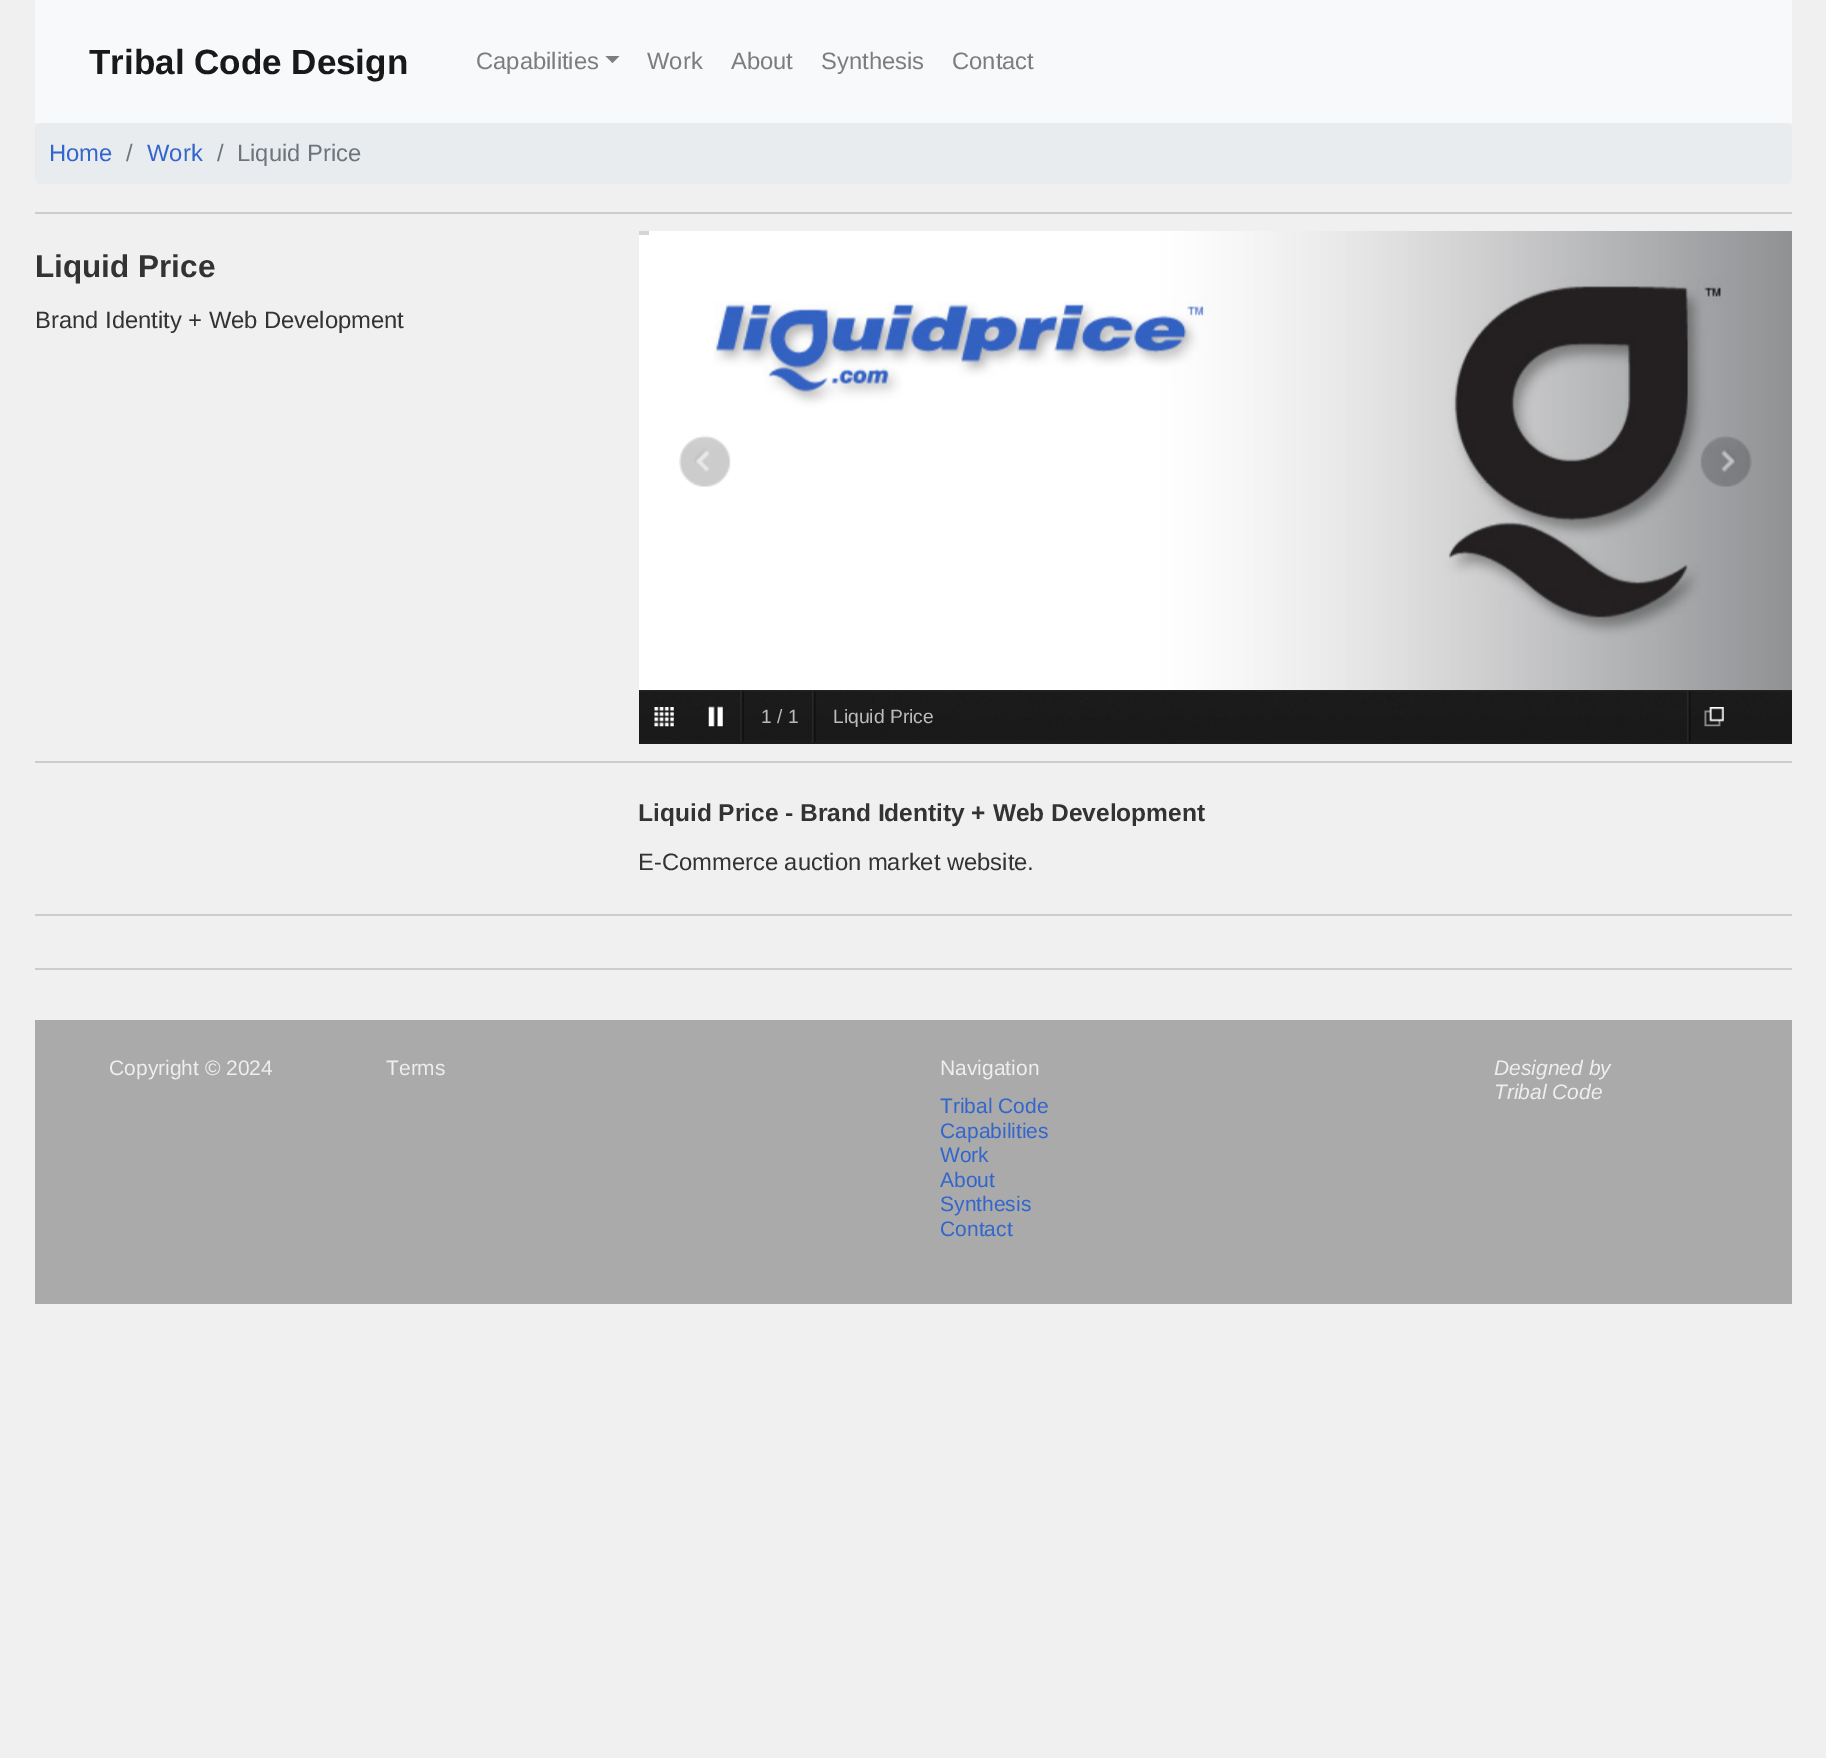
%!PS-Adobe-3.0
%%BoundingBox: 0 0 1826 1758
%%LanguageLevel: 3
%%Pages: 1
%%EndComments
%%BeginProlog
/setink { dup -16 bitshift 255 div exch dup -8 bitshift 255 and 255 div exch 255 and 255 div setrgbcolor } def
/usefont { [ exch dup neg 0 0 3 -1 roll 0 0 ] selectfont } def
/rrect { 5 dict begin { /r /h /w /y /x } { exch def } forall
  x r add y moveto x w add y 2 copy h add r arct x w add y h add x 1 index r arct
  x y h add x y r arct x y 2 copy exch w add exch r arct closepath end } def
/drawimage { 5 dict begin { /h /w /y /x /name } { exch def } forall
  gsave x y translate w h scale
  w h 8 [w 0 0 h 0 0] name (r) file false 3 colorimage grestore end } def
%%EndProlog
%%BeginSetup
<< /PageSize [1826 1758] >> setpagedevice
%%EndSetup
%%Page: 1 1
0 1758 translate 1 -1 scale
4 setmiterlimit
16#F0F0F0 setink
0 0 1826 1758 rectfill
16#F8F9FA setink
35 0 1757 123 rectfill
/LiberationSans-Bold 35 usefont
16#191919 setink
89 74 moveto (Tribal Code Design) show
/LiberationSans-Regular 23.75 usefont
16#7C7D7D setink
476 69 moveto (Capabilities) show
605.5 56 moveto 619.5 56 lineto 612.5 63 lineto closepath fill
[
    [(Work) 647 69]
    [(About) 731 69]
    [(Synthesis) 821 69]
    [(Contact) 952 69]
] { aload pop moveto show } forall
16#E9ECEF setink
35 123 1757 61 7 rrect fill
16#3366CC setink
49 161 moveto (Home) show
16#6C757D setink
126 161 moveto (/) show
16#3366CC setink
147 161 moveto (Work) show
16#6C757D setink
217 161 moveto (/) show
237 161 moveto (Liquid Price) show
16#CCCCCC setink
35 212 1757 2 rectfill
/LiberationSans-Bold 31.5 usefont
16#333333 setink
35 277 moveto (Liquid Price) show
/LiberationSans-Regular 23.75 usefont
35 328 moveto (Brand Identity + Web Development) show
(img1.raw) 639 231 1153 459 drawimage
16#D5D5D5 setink
639 231 10 4 rectfill
(img2.raw) 679 435 52 52 drawimage
(img3.raw) 1700 436 52 51 drawimage
16#222222 setink
639 690 1153 54 rectfill
(img4.raw) 639 691 1153 53 drawimage
(img5.raw) 654 707 20 20 drawimage
(img6.raw) 708 706 15 21 drawimage
(img7.raw) 740 691 4 51 drawimage
(img8.raw) 812 691 4 51 drawimage
/LiberationSans-Regular 19.25 usefont
16#BBBBBB setink
761 723 moveto (1 / 1) show
833 723 moveto (Liquid Price) show
(img9.raw) 1687 691 4 51 drawimage
(img10.raw) 1704 707 20 20 drawimage
16#CCCCCC setink
35 761 1757 2 rectfill
/LiberationSans-Bold 24.5 usefont
16#333333 setink
638 821 moveto (Liquid Price - Brand Identity + Web Development) show
/LiberationSans-Regular 23.75 usefont
638 870 moveto (E-Commerce auction market website.) show
[
    [35 914 1757 2 16#CCCCCC]
    [35 968 1757 2 16#CCCCCC]
    [35 1020 1757 284 16#AAAAAA]
] { aload pop setink rectfill } forall
/LiberationSans-Regular 21 usefont
16#EEEEEE setink
[
    [(Copyright © 2024) 109 1075]
    [(Terms) 386 1075]
    [(Navigation) 940 1075]
] { aload pop moveto show } forall
16#3366CC setink
[
    [(Tribal Code) 940 1113]
    [(Capabilities) 940 1138]
    [(Work) 940 1162]
    [(About) 940 1187]
    [(Synthesis) 940 1211]
    [(Contact) 940 1236]
] { aload pop moveto show } forall
/LiberationSans-Italic 21 usefont
16#EEEEEE setink
1494 1075 moveto (Designed by) show
1494 1099 moveto (Tribal Code) show
showpage
%%EOF
